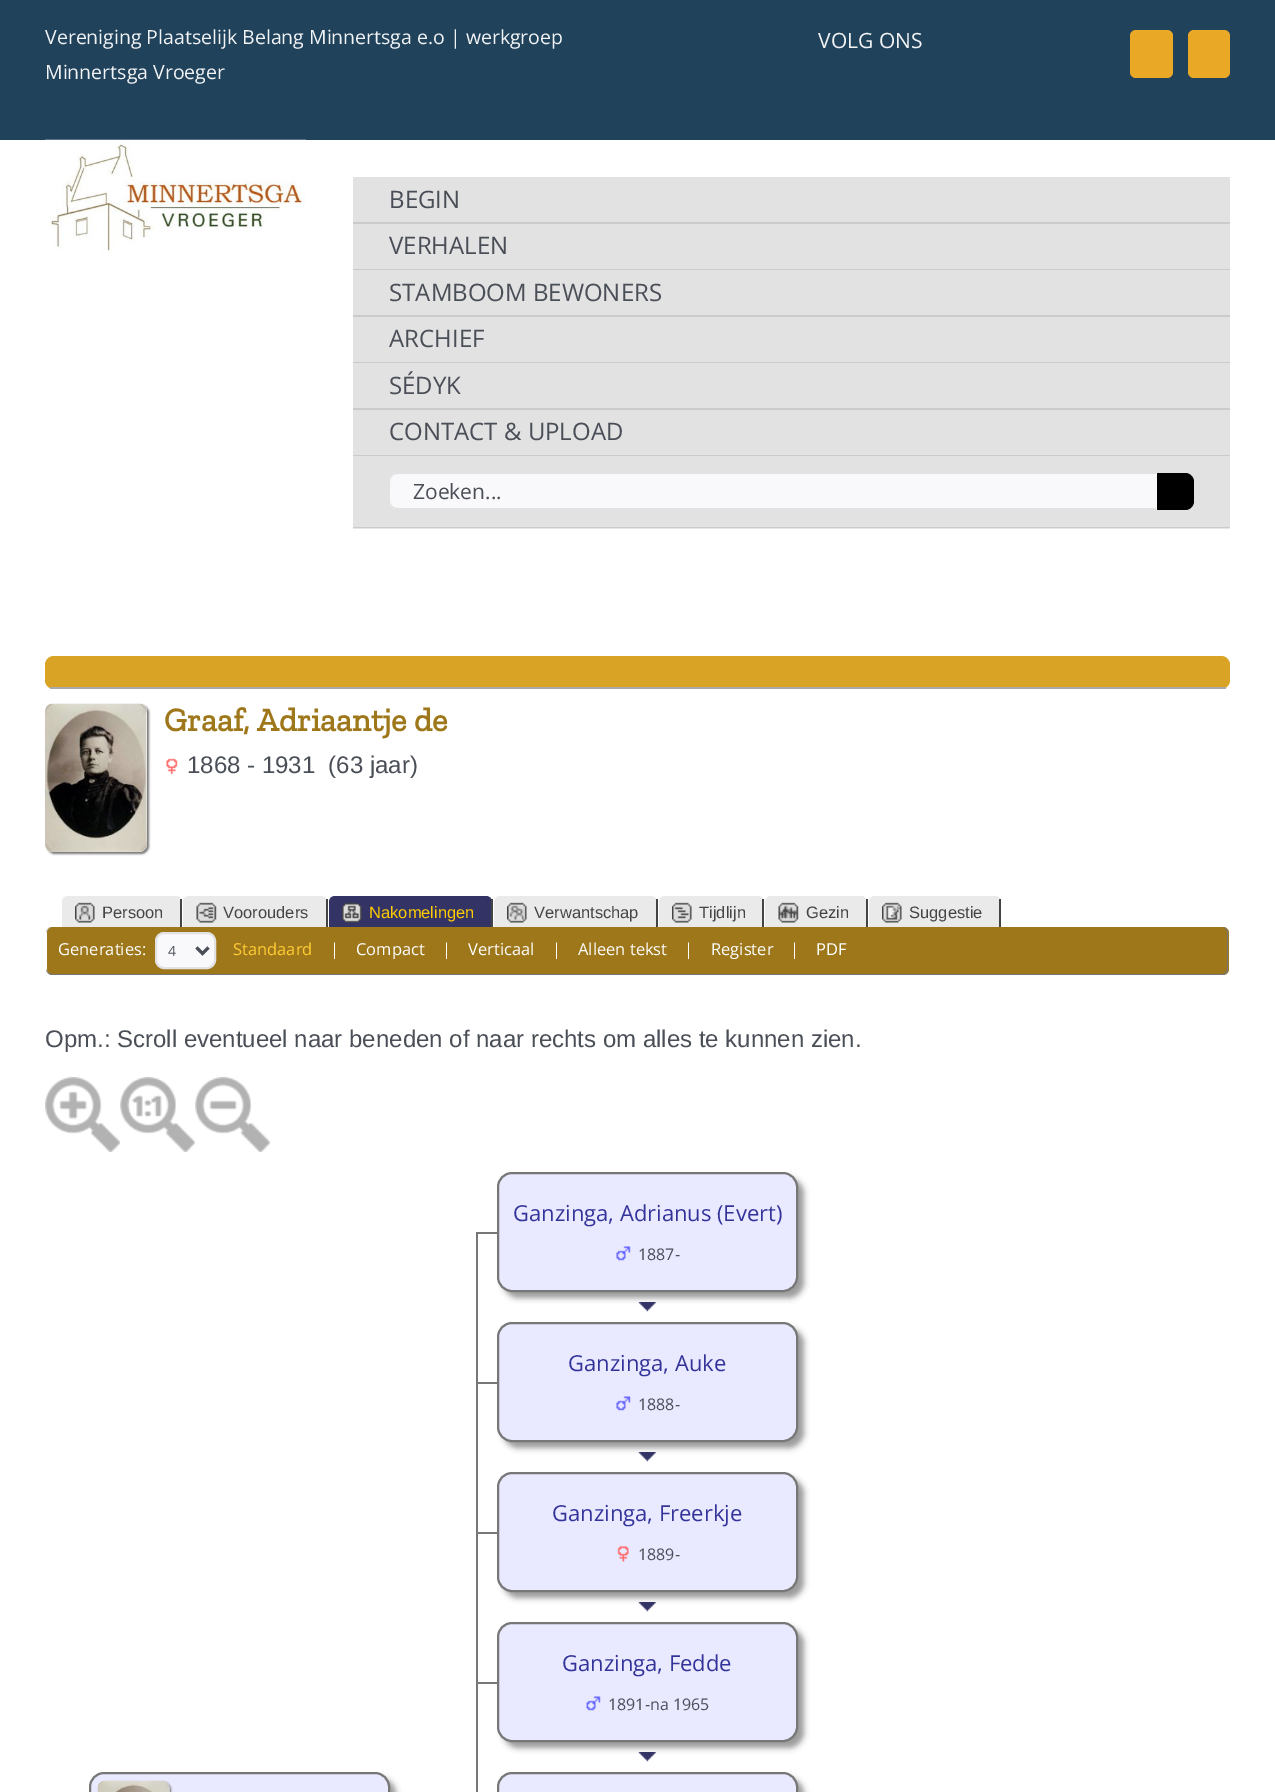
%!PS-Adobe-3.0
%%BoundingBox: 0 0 1275 1792
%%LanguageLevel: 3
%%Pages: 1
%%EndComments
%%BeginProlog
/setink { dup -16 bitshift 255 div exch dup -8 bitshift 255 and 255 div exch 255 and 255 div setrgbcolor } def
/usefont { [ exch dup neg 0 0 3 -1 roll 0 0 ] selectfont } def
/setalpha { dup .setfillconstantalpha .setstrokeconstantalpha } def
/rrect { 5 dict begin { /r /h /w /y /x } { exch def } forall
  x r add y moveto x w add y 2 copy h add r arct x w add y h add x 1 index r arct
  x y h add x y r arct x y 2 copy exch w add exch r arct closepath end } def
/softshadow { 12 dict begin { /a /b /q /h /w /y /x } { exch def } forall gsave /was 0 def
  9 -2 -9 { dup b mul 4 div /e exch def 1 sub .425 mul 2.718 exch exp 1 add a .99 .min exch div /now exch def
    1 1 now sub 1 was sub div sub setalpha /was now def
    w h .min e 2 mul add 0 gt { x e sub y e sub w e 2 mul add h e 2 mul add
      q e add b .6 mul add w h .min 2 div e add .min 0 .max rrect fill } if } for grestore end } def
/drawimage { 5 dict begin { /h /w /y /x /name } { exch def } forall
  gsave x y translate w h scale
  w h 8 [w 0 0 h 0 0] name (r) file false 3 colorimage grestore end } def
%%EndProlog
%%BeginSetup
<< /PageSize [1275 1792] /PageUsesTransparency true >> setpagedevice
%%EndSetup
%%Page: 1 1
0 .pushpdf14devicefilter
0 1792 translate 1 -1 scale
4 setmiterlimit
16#FFFFFF setink
0 0 1275 1792 rectfill
16#E6E6E6 setink
353 528 877 1 rectfill
16#20425B setink
0 0 1275 140 rectfill
/OpenSans-Regular 19.5 usefont
16#F2F3F5 setink
45 44 moveto (Vereniging Plaatselijk Belang Minnertsga e.o | werkgroep) show
45 79 moveto (Minnertsga Vroeger) show
/OpenSans-Regular 21 usefont
818 48 moveto (VOLG ONS) show
16#E9A825 setink
1130 30 43 48 6 rrect fill
1188 30 42 48 6 rrect fill
(img1.raw) 45 139 261 115 drawimage
16#E2E2E2 setink
353 177 877 278 rectfill
16#CBCBCB setink
353 222 877 2 rectfill
/OpenSans-Regular 24 usefont
16#4A4E57 setink
389 208 moveto (BEGIN) show
16#CBCBCB setink
353 269 877 1 rectfill
16#4A4E57 setink
389 254 moveto (VERHALEN) show
16#CBCBCB setink
353 315 877 2 rectfill
16#4A4E57 setink
389 301 moveto (STAMBOOM BEWONERS) show
16#CBCBCB setink
353 362 877 1 rectfill
16#4A4E57 setink
389 347 moveto (ARCHIEF) show
16#CBCBCB setink
353 408 877 2 rectfill
16#4A4E57 setink
389 394 moveto (SÉDYK) show
16#CBCBCB setink
353 455 877 1 rectfill
16#4A4E57 setink
389 440 moveto (CONTACT & UPLOAD) show
16#E2E2E2 setink
353 456 877 71 rectfill
16#CBCBCB setink
353 527 877 1 rectfill
16#F9F9FB setink
398 473 moveto 1157 473 lineto 1157 510 lineto 398 510 lineto 393 510 389 506 389 501 curveto 389 482 lineto 389 477 393 473 398 473 curveto closepath fill
16#E2E2E2 setink
398 474 moveto 1156 474 lineto 1156 473 lineto 398 473 lineto 393 473 389 477 389 482 curveto 389 501 lineto 389 506 393 510 398 510 curveto 1156 510 lineto 1156 508 lineto 398 508 lineto 393 508 390 505 390 501 curveto 390 482 lineto 390 477 393 474 398 474 curveto closepath fill
/OpenSans-Regular 21 usefont
16#4A4E57 setink
413 499 moveto (Zoeken...) show
16#000000 setink
1157 473 moveto 1185 473 lineto 1190 473 1194 477 1194 482 curveto 1194 501 lineto 1194 506 1190 510 1185 510 curveto 1157 510 lineto closepath fill
16#D9A325 setink
45 656 1185 33 9 rrect fill
16#AAAAAA setink
50 687 1176 2 rectfill
16#777777 setink
47 705 102 149 8 1 1 softshadow
(img2.raw) 45 703 102 149 drawimage
/ZillaSlab-Bold 33 usefont
16#9E771B setink
164 731 moveto (Graaf, Adriaantje de) show
(img3.raw) 166 758 12 16 drawimage
/LiberationSans-Regular 24 usefont
16#4A4E57 setink
187 773 moveto (1868 - 1931  \(63 jaar\)) show
16#EAEAEA setink
68 896 moveto 176 896 lineto 179.5 896 182 898.5 182 902 curveto 182 927 lineto 62 927 lineto 62 902 lineto 62 898.5 64.5 896 68 896 curveto closepath fill
16#444444 setink
180 899 2 28 rectfill
(img4.raw) 75 902 20 21 drawimage
/LiberationSans-Regular 16.5 usefont
102 918 moveto (Persoon) show
16#EAEAEA setink
189 896 moveto 321 896 lineto 324.5 896 327 898.5 327 902 curveto 327 927 lineto 183 927 lineto 183 902 lineto 183 898.5 185.5 896 189 896 curveto closepath fill
16#444444 setink
326 899 2 28 rectfill
(img5.raw) 196 902 21 21 drawimage
223 918 moveto (Voorouders) show
16#333366 setink
335 896 moveto 486 896 lineto 489.5 896 492 898.5 492 902 curveto 492 927 lineto 329 927 lineto 329 902 lineto 329 898.5 331.5 896 335 896 curveto closepath fill
16#444444 setink
491 899 2 28 rectfill
(img6.raw) 342 902 20 21 drawimage
16#FFCC00 setink
369 918 moveto (Nakomelingen) show
16#EAEAEA setink
500 896 moveto 651 896 lineto 654.5 896 657 898.5 657 902 curveto 657 927 lineto 494 927 lineto 494 902 lineto 494 898.5 496.5 896 500 896 curveto closepath fill
16#444444 setink
656 899 2 28 rectfill
(img7.raw) 507 902 20 21 drawimage
534 918 moveto (Verwantschap) show
16#EAEAEA setink
665 896 moveto 758 896 lineto 761.5 896 764 898.5 764 902 curveto 764 927 lineto 659 927 lineto 659 902 lineto 659 898.5 661.5 896 665 896 curveto closepath fill
16#444444 setink
762 899 2 28 rectfill
(img8.raw) 672 902 20 21 drawimage
699 918 moveto (Tijdlijn) show
16#EAEAEA setink
771 896 moveto 861 896 lineto 864.5 896 867 898.5 867 902 curveto 867 927 lineto 765 927 lineto 765 902 lineto 765 898.5 767.5 896 771 896 curveto closepath fill
16#444444 setink
866 899 2 28 rectfill
(img9.raw) 778 902 21 21 drawimage
806 918 moveto (Gezin) show
16#EAEAEA setink
875 896 moveto 995 896 lineto 998.5 896 1001 898.5 1001 902 curveto 1001 927 lineto 869 927 lineto 869 902 lineto 869 898.5 871.5 896 875 896 curveto closepath fill
16#444444 setink
999 899 2 28 rectfill
(img10.raw) 882 902 20 21 drawimage
909 918 moveto (Suggestie) show
16#9E771B setink
47 927 1182 48 6 rrect fill
16#777777 setink
52 927 moveto 1222 927 lineto 1226 927 1228 930 1228 933 curveto 1228 969 lineto 1228 972 1226 975 1222 975 curveto 52 975 lineto 49 975 46 972 46 969 curveto 46 933 lineto 46 930 49 927 52 927 curveto closepath 52 927 moveto 1222 927 lineto 1225 927 1227 930 1227 933 curveto 1227 969 lineto 1227 971 1225 974 1222 974 curveto 52 974 lineto 49 974 46 971 46 969 curveto 46 933 lineto 46 930 49 927 52 927 curveto closepath eofill
/OpenSans-Regular 16.5 usefont
16#FFFFFF setink
58 955 moveto (Generaties:) show
16#F9F9FB setink
156 933 59 35 8 rrect gsave fill grestore
16#E2E2E2 setink
2 setlinewidth
stroke
16#4A4E57 setink
3 setlinewidth
196.5 947.5 moveto 202.5 953.5 lineto 208.5 947.5 lineto stroke
/OpenSans-Regular 14 usefont
168 956 moveto (4) show
/OpenSans-Regular 16.5 usefont
16#FFCC33 setink
233 955 moveto (Standaard) show
16#FFFFFF setink
[
    [(|) 330 955]
    [(Compact) 356 955]
    [(|) 442 955]
    [(Verticaal) 468 955]
    [(|) 552 955]
    [(Alleen tekst) 578 955]
    [(|) 684 955]
    [(Register) 711 955]
    [(|) 790 955]
    [(PDF) 816 955]
] { aload pop moveto show } forall
/LiberationSans-Regular 24 usefont
16#4A4E57 setink
45 1047 moveto (Opm.: Scroll eventueel naar beneden of naar rechts om alles te kunnen zien.) show
(img11.raw) 45 1077 75 75 drawimage
(img12.raw) 120 1077 75 75 drawimage
(img13.raw) 195 1077 75 75 drawimage
16#777777 setink
476 1232 25 2 rectfill
16#999999 setink
503 1178 301 120 15 3 1 softshadow
16#E9E9FF setink
498 1173 299 118 14 rrect gsave fill grestore
16#777777 setink
2 setlinewidth
stroke
/OpenSans-Regular 22 usefont
16#333399 setink
513 1221 moveto (Ganzinga, Adrianus \(Evert\)) show
(img14.raw) 616 1246 15 15 drawimage
/OpenSans-Regular 16 usefont
16#4A4E57 setink
638 1260 moveto (1887-) show
[
    [476 1382 25 2 16#777777]
    [476 1532 25 2 16#777777]
    [476 1682 25 2 16#777777]
    [476 1232 2 560 16#777777]
] { aload pop setink rectfill } forall
(img15.raw) 638 1302 18 10 drawimage
16#999999 setink
503 1328 301 120 15 3 1 softshadow
16#E9E9FF setink
498 1323 299 118 14 rrect gsave fill grestore
16#777777 setink
stroke
/OpenSans-Regular 22 usefont
16#333399 setink
568 1371 moveto (Ganzinga, Auke) show
(img14.raw) 616 1396 15 15 drawimage
/OpenSans-Regular 16 usefont
16#4A4E57 setink
638 1410 moveto (1888-) show
(img15.raw) 638 1452 18 10 drawimage
16#999999 setink
503 1478 301 120 15 3 1 softshadow
16#E9E9FF setink
498 1473 299 118 14 rrect gsave fill grestore
16#777777 setink
stroke
/OpenSans-Regular 22 usefont
16#333399 setink
552 1521 moveto (Ganzinga, Freerkje) show
(img16.raw) 617 1546 12 16 drawimage
/OpenSans-Regular 16 usefont
16#4A4E57 setink
638 1560 moveto (1889-) show
(img15.raw) 638 1602 18 10 drawimage
16#999999 setink
503 1628 301 120 15 3 1 softshadow
16#E9E9FF setink
498 1623 299 118 14 rrect gsave fill grestore
16#777777 setink
stroke
/OpenSans-Regular 22 usefont
16#333399 setink
562 1671 moveto (Ganzinga, Fedde) show
(img17.raw) 586 1696 15 15 drawimage
/OpenSans-Regular 16 usefont
16#4A4E57 setink
608 1710 moveto (1891-na 1965) show
(img15.raw) 638 1752 18 10 drawimage
16#999999 setink
95 1778 301 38 15 3 1 softshadow
16#E9E9FF setink
90 1773 299 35 14 rrect gsave fill grestore
16#777777 setink
stroke
99 1782 72 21 8 1 1 softshadow
(img18.raw) 97 1780 73 12 drawimage
16#999999 setink
503 1778 301 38 15 3 1 softshadow
16#E9E9FF setink
498 1773 299 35 14 rrect gsave fill grestore
16#777777 setink
stroke
.poppdf14devicefilter showpage
%%EOF
